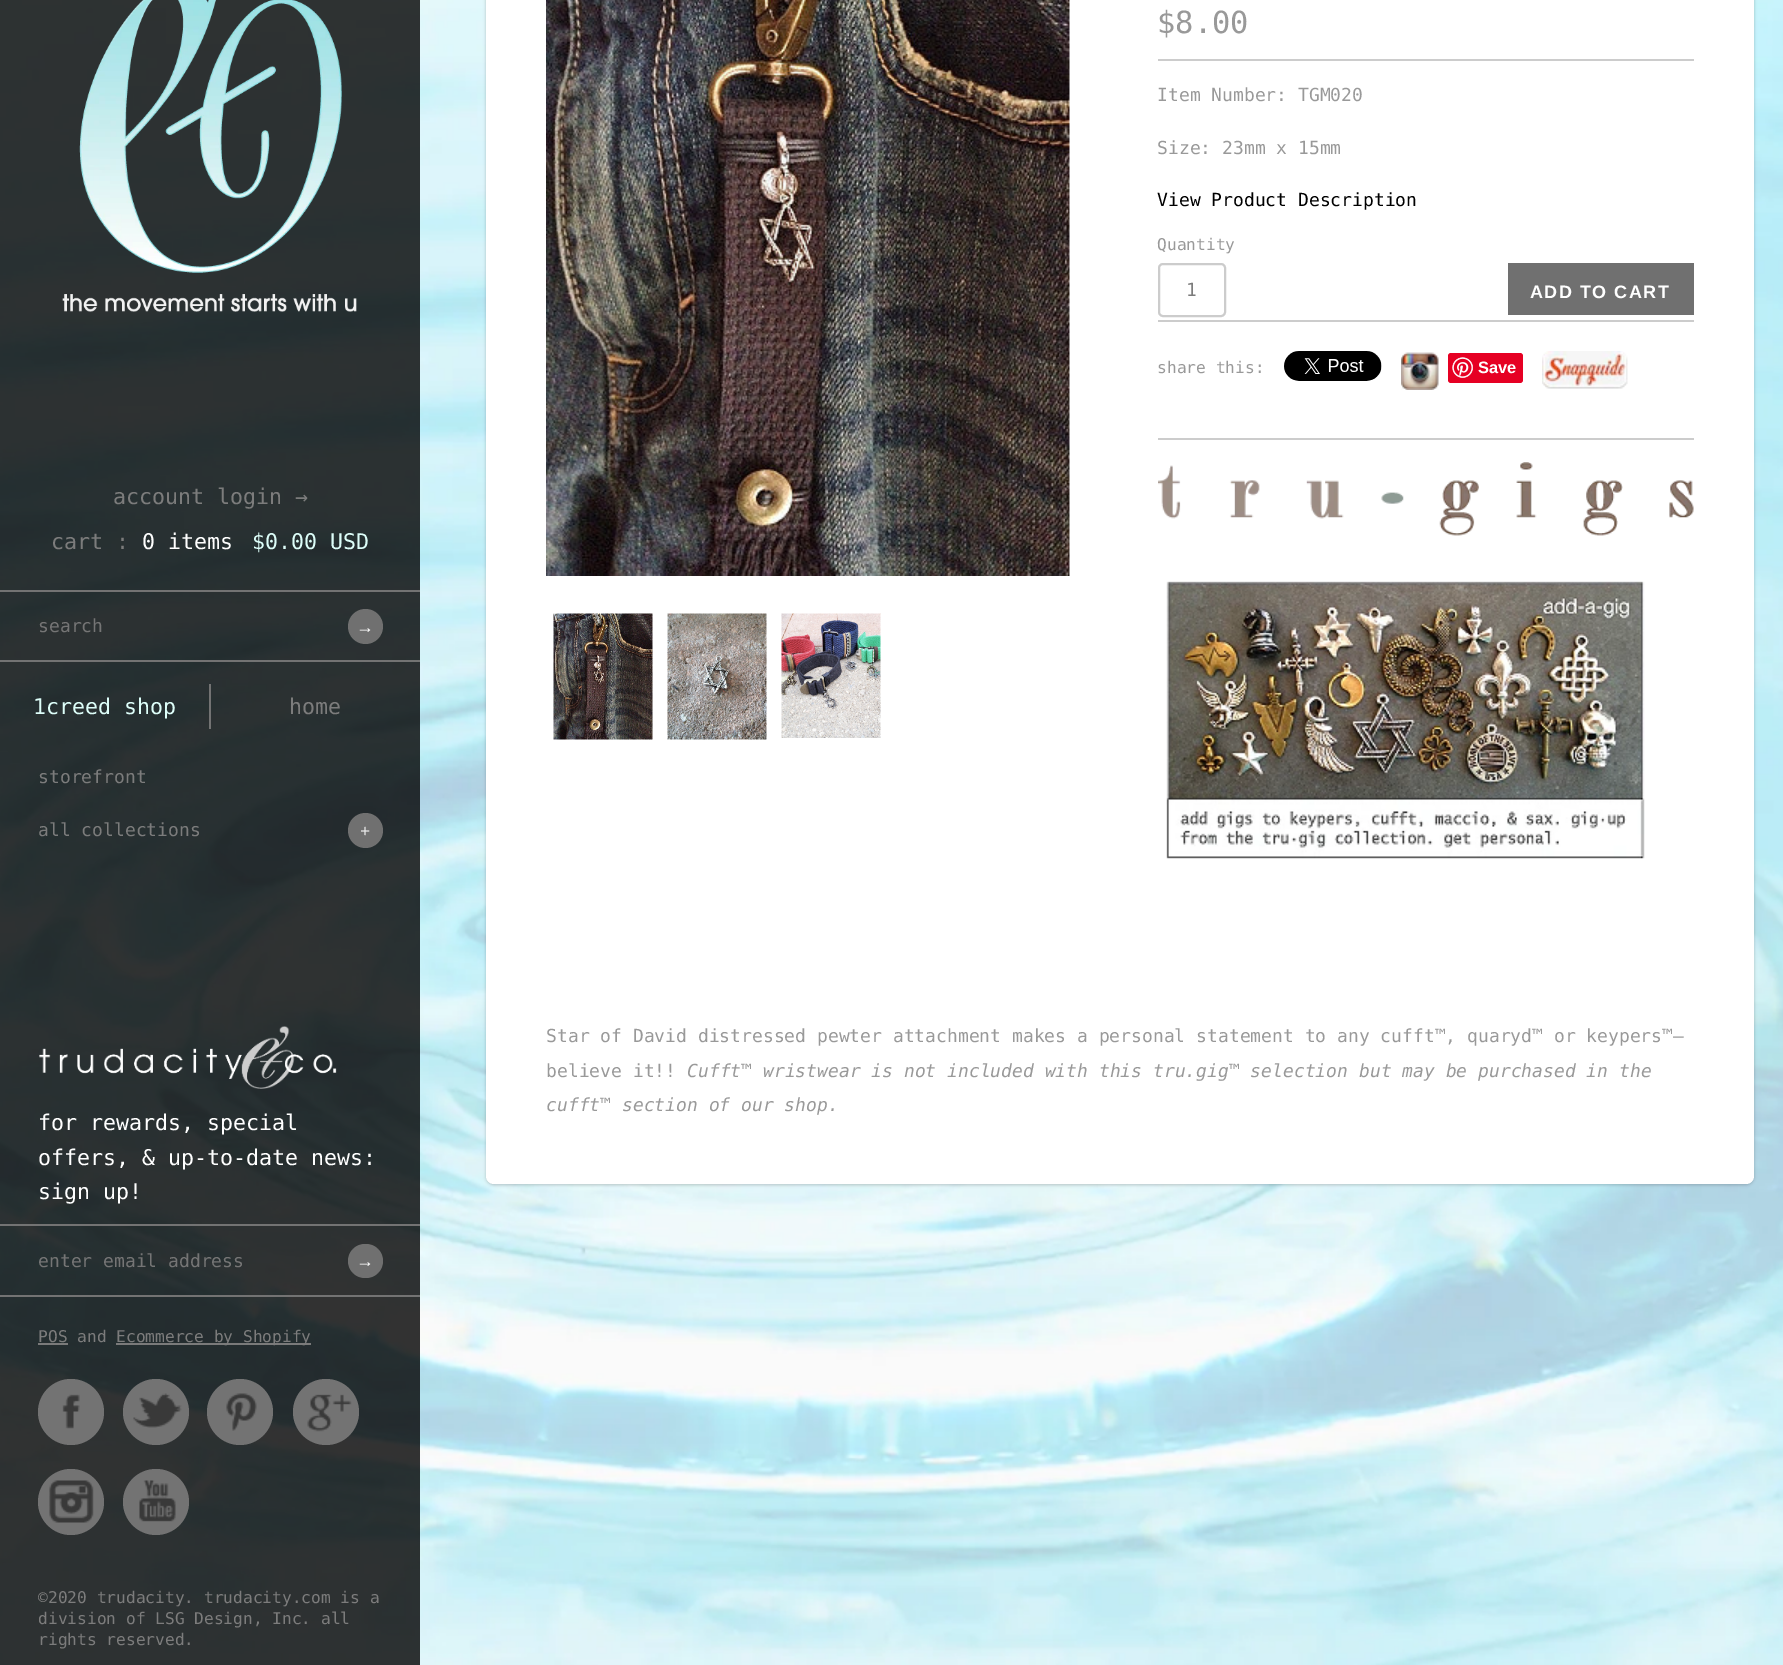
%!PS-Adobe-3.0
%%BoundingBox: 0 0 1783 1665
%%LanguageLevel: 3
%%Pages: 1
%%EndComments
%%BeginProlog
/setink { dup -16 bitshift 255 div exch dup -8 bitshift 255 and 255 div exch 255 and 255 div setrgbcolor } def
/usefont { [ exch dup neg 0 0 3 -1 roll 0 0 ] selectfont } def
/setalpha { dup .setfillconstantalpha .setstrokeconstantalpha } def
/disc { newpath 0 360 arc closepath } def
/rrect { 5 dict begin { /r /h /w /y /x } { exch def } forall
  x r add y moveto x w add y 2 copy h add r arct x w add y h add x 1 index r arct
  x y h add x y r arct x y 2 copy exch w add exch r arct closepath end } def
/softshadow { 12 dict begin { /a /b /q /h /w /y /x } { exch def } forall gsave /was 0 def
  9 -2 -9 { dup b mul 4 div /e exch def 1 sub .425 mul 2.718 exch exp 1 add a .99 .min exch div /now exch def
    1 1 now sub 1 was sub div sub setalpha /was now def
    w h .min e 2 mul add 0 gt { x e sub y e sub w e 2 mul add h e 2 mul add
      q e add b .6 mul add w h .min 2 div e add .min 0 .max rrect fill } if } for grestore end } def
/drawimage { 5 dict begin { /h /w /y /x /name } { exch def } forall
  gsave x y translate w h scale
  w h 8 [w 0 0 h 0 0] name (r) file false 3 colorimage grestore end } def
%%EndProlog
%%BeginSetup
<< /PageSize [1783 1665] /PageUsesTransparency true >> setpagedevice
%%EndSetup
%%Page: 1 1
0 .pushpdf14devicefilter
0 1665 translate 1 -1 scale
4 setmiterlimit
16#FFFFFF setink
0 0 1783 1665 rectfill
(img1.raw) 0 0 1783 1665 drawimage
0.8 setalpha
16#000000 setink
0 0 420 1665 rectfill
1 setalpha
(img2.raw) 62 0 295 312 drawimage
/DejaVuSansMono-Regular 21.6 usefont
16#7C7C7C setink
113 504 moveto (account login →) show
51 549 moveto (cart :) show
16#FFFFFF setink
142 549 moveto (0 items) show
16#DDFEF9 setink
252 549 moveto ($0.00 USD) show
16#737373 setink
0 590 420 2 rectfill
0 660 420 2 rectfill
/DejaVuSansMono-Regular 18 usefont
16#757575 setink
38 632 moveto (search) show
16#707070 setink
365.5 626.5 17.5 disc fill
/LiberationSerif-Regular 18 usefont
16#FFFFFF setink
356 633 moveto (→) show
16#737373 setink
209 684 2 45 rectfill
/DejaVuSansMono-Regular 21.6 usefont
16#DDFEF9 setink
33 714 moveto (1creed shop) show
/DejaVuSansMono-Regular 18 usefont
16#7C7C7C setink
38 783 moveto (storefront) show
38 836 moveto (all collections) show
16#707070 setink
365.5 830.5 17.5 disc fill
/LiberationSerif-Regular 18 usefont
16#FFFFFF setink
360 837 moveto (+) show
/DejaVuSansMono-Regular 21.6 usefont
16#7C7C7C setink
289 714 moveto (home) show
(img3.raw) 39 1026 298 63 drawimage
16#FFFFFF setink
[
    [(for rewards, special) 38 1130]
    [(offers, & up-to-date news:) 38 1165]
    [(sign up!) 38 1199]
] { aload pop moveto show } forall
16#737373 setink
0 1224 420 2 rectfill
0 1295 420 2 rectfill
/DejaVuSansMono-Regular 18 usefont
16#757575 setink
38 1267 moveto (enter email address) show
16#707070 setink
348 1244 35 34 17 rrect fill
/LiberationSerif-Regular 18 usefont
16#FFFFFF setink
356 1267 moveto (→) show
/DejaVuSansMono-Regular 16.2 usefont
16#7C7C7C setink
38 1342 moveto (POS and) show
16#7A7A7A setink
38 1343 30 2 rectfill
116 1343 195 2 rectfill
16#7C7C7C setink
116 1342 moveto (Ecommerce by Shopify) show
16#737373 setink
71 1412 33 disc fill
(img4.raw) 62 1394 18 35 drawimage
156 1412 33 disc fill
(img5.raw) 133 1393 49 35 drawimage
240 1412 33 disc fill
(img6.raw) 226 1393 31 38 drawimage
326 1412 33 disc fill
(img7.raw) 307 1394 45 38 drawimage
71 1502 33 disc fill
(img8.raw) 49 1480 45 43 drawimage
156 1502 33 disc fill
(img9.raw) 139 1480 37 42 drawimage
16#7C7C7C setink
[
    [(©2020 trudacity. trudacity.com is a) 38 1603]
    [(division of LSG Design, Inc. all) 38 1624]
    [(rights reserved.) 38 1645]
] { aload pop moveto show } forall
16#000000 setink
486 -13 1268 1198 8 1.5 0.2 softshadow
16#FFFFFF setink
486 -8 1268 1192 8 rrect fill
(img10.raw) 546 0 524 576 drawimage
(img11.raw) 553 613 100 127 drawimage
(img12.raw) 667 613 100 127 drawimage
(img13.raw) 781 613 100 125 drawimage
/DejaVuSansMono-Regular 30.5 usefont
16#999999 setink
1157 33 moveto ($8.00) show
16#CCCCCC setink
1158 59 536 2 rectfill
/DejaVuSansMono-Regular 18 usefont
16#999999 setink
1157 101 moveto (Item Number: TGM020) show
1157 154 moveto (Size: 23mm x 15mm) show
16#000000 setink
1157 206 moveto (View Product Description) show
/DejaVuSansMono-Regular 16.2 usefont
16#999999 setink
1157 250 moveto (Quantity) show
16#CCCCCC setink
2 setlinewidth
1159 264 66 52 4 rrect stroke
/DejaVuSansMono-Regular 18 usefont
16#7C7C7C setink
1186 296 moveto (1) show
16#707070 setink
1508 263 186 52 rectfill
/LiberationSans-Bold 18 usefont
16#FFFFFF setink
1530 298 moveto 1.5 0 (ADD TO CART) ashow
16#CCCCCC setink
1158 320 536 2 rectfill
/DejaVuSansMono-Regular 16.2 usefont
16#999999 setink
1157 373 moveto (share this:) show
(img14.raw) 1284 351 98 30 drawimage
(img15.raw) 1401 352 38 38 drawimage
16#E60023 setink
1448 353 75 30 3 rrect fill
(img16.raw) 1452 357 21 21 drawimage
/LiberationSans-Bold 16.5 usefont
16#FFFFFF setink
1478 373 moveto (Save) show
(img17.raw) 1542 351 86 38 drawimage
16#CCCCCC setink
1158 438 536 2 rectfill
(img18.raw) 1158 462 536 74 drawimage
(img19.raw) 1166 581 479 278 drawimage
/DejaVuSansMono-Regular 18 usefont
16#999999 setink
546 1042 moveto (Star of David distressed pewter attachment makes a personal statement to any cufft™, quaryd™ or keypers™—) show
546 1077 moveto (believe it!!) show
/DejaVuSansMono-Italic 18 usefont
687 1077 moveto (Cufft™ wristwear is not included with this tru.gig™ selection but may be purchased in the) show
546 1111 moveto (cufft™ section of our shop.) show
.poppdf14devicefilter showpage
%%EOF
